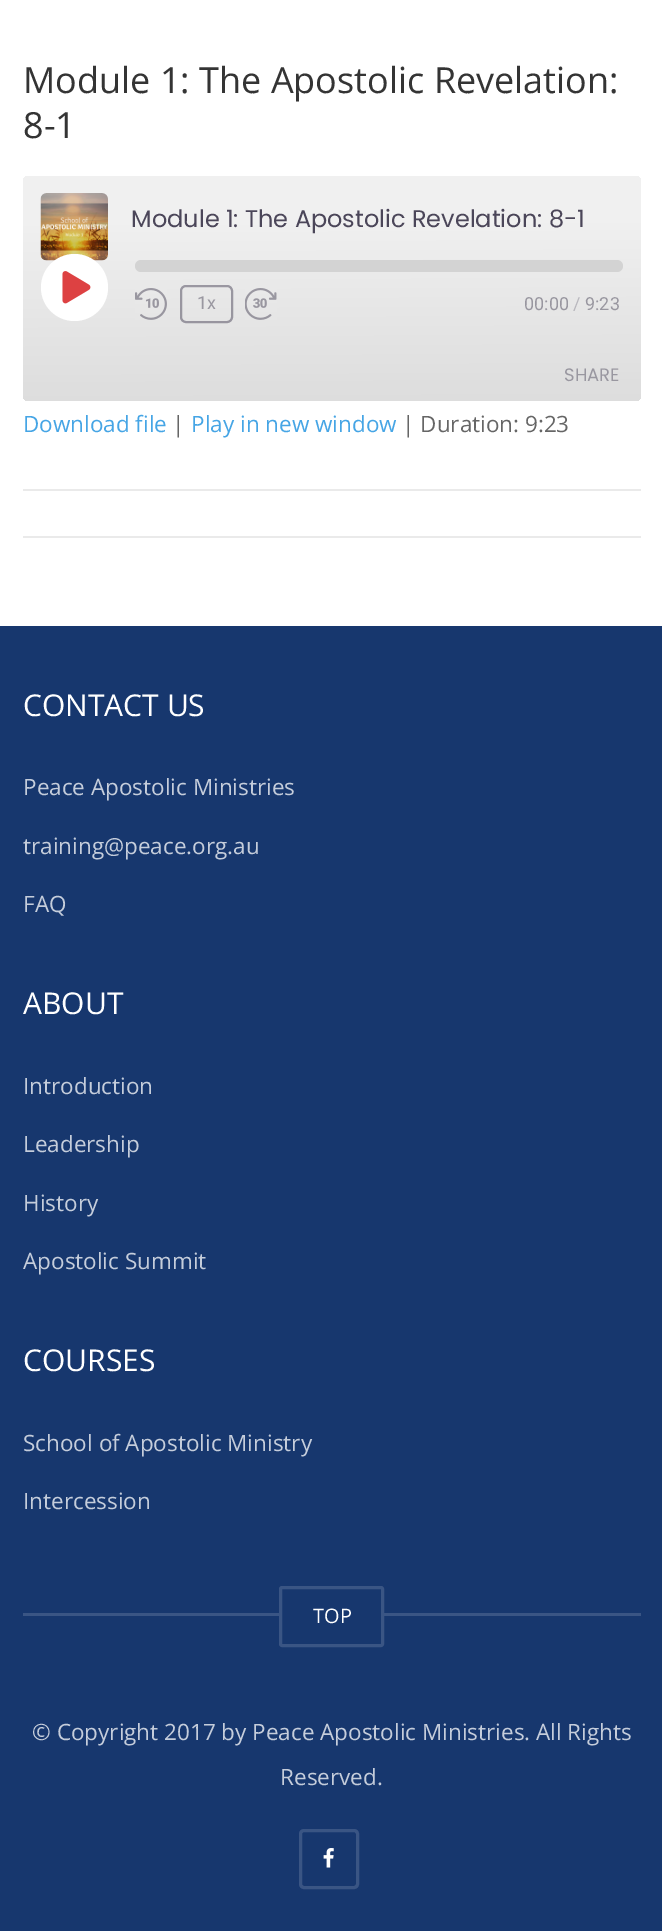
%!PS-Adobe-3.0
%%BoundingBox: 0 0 662 1931
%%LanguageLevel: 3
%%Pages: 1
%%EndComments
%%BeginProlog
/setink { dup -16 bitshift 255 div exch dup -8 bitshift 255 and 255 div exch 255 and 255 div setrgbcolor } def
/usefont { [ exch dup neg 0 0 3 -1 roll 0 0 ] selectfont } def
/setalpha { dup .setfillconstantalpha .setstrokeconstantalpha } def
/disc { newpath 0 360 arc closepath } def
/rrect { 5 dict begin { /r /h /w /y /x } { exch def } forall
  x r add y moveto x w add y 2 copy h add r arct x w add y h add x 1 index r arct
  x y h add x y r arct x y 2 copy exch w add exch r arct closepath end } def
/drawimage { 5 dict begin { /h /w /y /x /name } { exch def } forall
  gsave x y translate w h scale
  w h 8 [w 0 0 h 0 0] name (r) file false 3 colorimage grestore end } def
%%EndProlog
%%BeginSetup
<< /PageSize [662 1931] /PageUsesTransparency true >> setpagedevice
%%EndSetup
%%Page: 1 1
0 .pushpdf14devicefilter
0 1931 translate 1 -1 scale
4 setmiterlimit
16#FFFFFF setink
0 0 662 1931 rectfill
/OpenSans-Regular 36 usefont
16#343434 setink
23 93 moveto (Module 1: The Apostolic Revelation:) show
23 138 moveto (8-1) show
gsave 23 176 618 225 6 rrect clip newpath
<< /ShadingType 2 /ColorSpace /DeviceRGB /Coords [332 402 331 174] /Extend [true true] /Function << /FunctionType 3 /Domain [0 1] /Functions [<< /FunctionType 2 /Domain [0 1] /C0 [0.867 0.867 0.867] /C1 [0.867 0.867 0.867] /N 1 >> << /FunctionType 2 /Domain [0 1] /C0 [0.867 0.867 0.867] /C1 [0.941 0.941 0.941] /N 1 >> << /FunctionType 2 /Domain [0 1] /C0 [0.941 0.941 0.941] /C1 [0.941 0.941 0.941] /N 1 >>] /Bounds [0.01 0.78] /Encode [0 1 0 1 0 1] >> >> shfill grestore
(img1.raw) 40 193 68 68 drawimage
/Poppins-Regular 24 usefont
16#4B4659 setink
131 227 moveto (Module 1: The Apostolic Revelation: 8-1) show
16#FFFFFF setink
74.5 287.5 33.5 disc fill
(img2.raw) 62 271 29 33 drawimage
16#D3D3D3 setink
135 260 488 12 6 rrect fill
(img3.raw) 135 288 32 32 drawimage
0.5 setalpha
16#4B4659 setink
2 setlinewidth
181 286 51 36 5 rrect stroke
/Roboto-Regular 18 usefont
1 setalpha
16#9997A0 setink
197 309 moveto (1x) show
(img4.raw) 245 288 32 32 drawimage
524 310 moveto (00:00) show
16#B8B7BD setink
573 310 moveto (/) show
16#9997A0 setink
585 310 moveto (9:23) show
/Poppins-Regular 18 usefont
564 381 moveto (SHARE) show
/OpenSans-Regular 22.5 usefont
16#46A5E5 setink
23 432 moveto (Download file) show
16#666666 setink
172 432 moveto (|) show
16#46A5E5 setink
191 432 moveto (Play in new window) show
16#666666 setink
402 432 moveto (| Duration: 9:23) show
[
    [23 489 618 2 16#EAEAEA]
    [23 536 618 2 16#EAEAEA]
    [0 626 662 1305 16#17376E]
] { aload pop setink rectfill } forall
/OpenSans-Regular 30 usefont
16#FFFFFF setink
23 716 moveto (CONTACT US) show
/OpenSans-Regular 22.5 usefont
16#C5CDDB setink
[
    [(Peace Apostolic Ministries) 23 795]
    [(training@peace.org.au) 23 854]
    [(FAQ) 23 912]
] { aload pop moveto show } forall
/OpenSans-Regular 30 usefont
16#FFFFFF setink
23 1014 moveto (ABOUT) show
/OpenSans-Regular 22.5 usefont
16#C5CDDB setink
[
    [(Introduction) 23 1094]
    [(Leadership) 23 1152]
    [(History) 23 1211]
    [(Apostolic Summit) 23 1269]
] { aload pop moveto show } forall
/OpenSans-Regular 30 usefont
16#FFFFFF setink
23 1371 moveto (COURSES) show
/OpenSans-Regular 22.5 usefont
16#C5CDDB setink
23 1451 moveto (School of Apostolic Ministry) show
23 1509 moveto (Intercession) show
16#3A5584 setink
23 1613 618 3 rectfill
16#17376E setink
280.5 1587.5 102 58 1.5 rrect gsave fill grestore
16#3A5584 setink
3 setlinewidth
stroke
/OpenSans-Regular 20 usefont
16#FFFFFF setink
313 1623 moveto (TOP) show
/OpenSans-Regular 22.5 usefont
16#C5CDDB setink
32 1740 moveto (© Copyright 2017 by Peace Apostolic Ministries. All Rights) show
280 1785 moveto (Reserved.) show
16#3A5584 setink
300.5 1830.5 57 57 3.5 rrect stroke
(img5.raw) 323 1848 11 20 drawimage
.poppdf14devicefilter showpage
%%EOF
